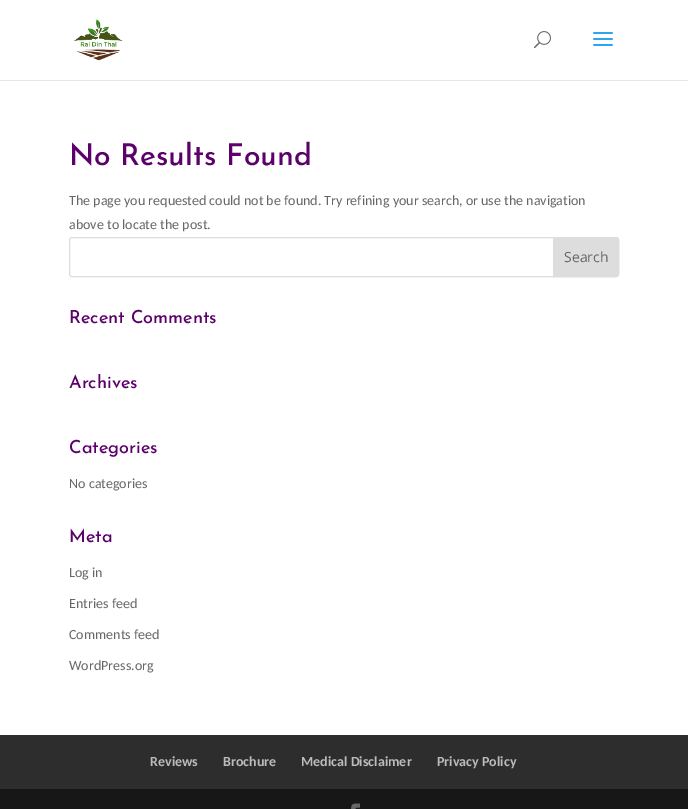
%!PS-Adobe-3.0
%%BoundingBox: 0 0 688 809
%%LanguageLevel: 3
%%Pages: 1
%%EndComments
%%BeginProlog
/setink { dup -16 bitshift 255 div exch dup -8 bitshift 255 and 255 div exch 255 and 255 div setrgbcolor } def
/usefont { [ exch dup neg 0 0 3 -1 roll 0 0 ] selectfont } def
/rrect { 5 dict begin { /r /h /w /y /x } { exch def } forall
  x r add y moveto x w add y 2 copy h add r arct x w add y h add x 1 index r arct
  x y h add x y r arct x y 2 copy exch w add exch r arct closepath end } def
/drawimage { 5 dict begin { /h /w /y /x /name } { exch def } forall
  gsave x y translate w h scale
  w h 8 [w 0 0 h 0 0] name (r) file false 3 colorimage grestore end } def
%%EndProlog
%%BeginSetup
<< /PageSize [688 809] >> setpagedevice
%%EndSetup
%%Page: 1 1
0 809 translate 1 -1 scale
4 setmiterlimit
16#FFFFFF setink
0 0 688 809 rectfill
16#E6E6E6 setink
0 80 688 1 rectfill
(img1.raw) 74 19 49 42 drawimage
(img2.raw) 534 31 17 18 drawimage
(img3.raw) 593 32 20 14 drawimage
/JosefinSans-Medium 30 usefont
16#5C006B setink
69 165 moveto (No Results Found) show
/Carlito-Regular 14 usefont
16#666666 setink
69 205 moveto (The page you requested could not be found. Try refining your search, or use the navigation) show
69 229 moveto (above to locate the post.) show
16#DDDDDD setink
69.5 237.5 549 39 2.5 rrect stroke
553.5 237.5 moveto 616 237.5 lineto 617.5 237.5 618.5 238.5 618.5 240 curveto 618.5 274 lineto 618.5 275.5 617.5 276.5 616 276.5 curveto 553.5 276.5 lineto closepath gsave fill grestore
stroke
/OpenSans-Regular 14 usefont
16#666666 setink
564 262 moveto (Search) show
/JosefinSans-Medium 18 usefont
16#5C006B setink
[
    [(Recent Comments) 69 323]
    [(Archives) 69 388]
    [(Categories) 69 453]
] { aload pop moveto show } forall
/Carlito-Regular 14 usefont
16#666666 setink
69 488 moveto (No categories) show
/JosefinSans-Medium 18 usefont
16#5C006B setink
69 542 moveto (Meta) show
/Carlito-Regular 14 usefont
16#666666 setink
[
    [(Log in) 69 577]
    [(Entries feed) 69 608]
    [(Comments feed) 69 639]
    [(WordPress.org) 69 670]
] { aload pop moveto show } forall
16#2D2D2D setink
0 735 688 54 rectfill
/Carlito-Bold 14 usefont
16#BBBBBB setink
[
    [(Reviews) 150 766]
    [(Brochure) 223 766]
    [(Medical Disclaimer) 301 766]
    [(Privacy Policy) 437 766]
] { aload pop moveto show } forall
16#171717 setink
0 789 688 20 rectfill
(img4.raw) 351 803 9 6 drawimage
showpage
%%EOF
